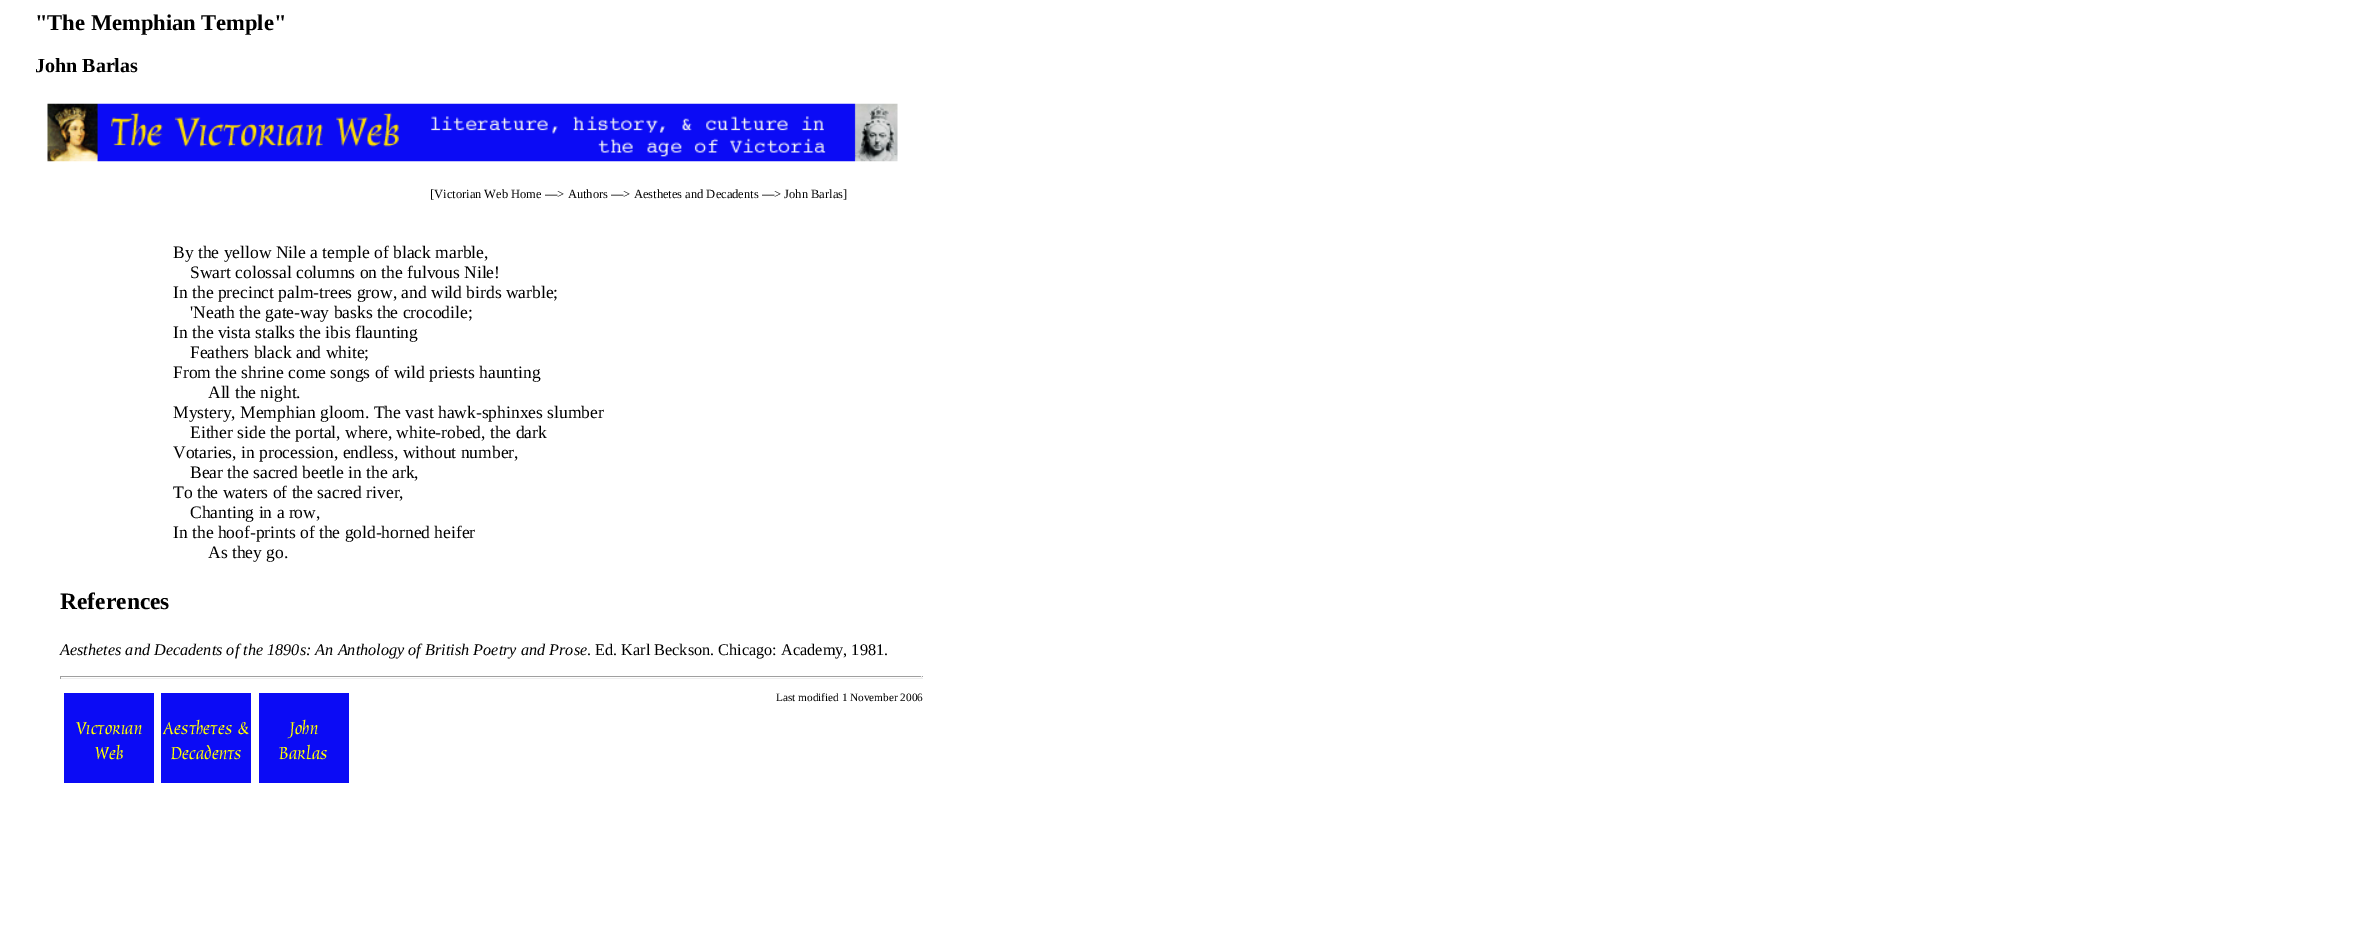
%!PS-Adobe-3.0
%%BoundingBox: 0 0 2359 945
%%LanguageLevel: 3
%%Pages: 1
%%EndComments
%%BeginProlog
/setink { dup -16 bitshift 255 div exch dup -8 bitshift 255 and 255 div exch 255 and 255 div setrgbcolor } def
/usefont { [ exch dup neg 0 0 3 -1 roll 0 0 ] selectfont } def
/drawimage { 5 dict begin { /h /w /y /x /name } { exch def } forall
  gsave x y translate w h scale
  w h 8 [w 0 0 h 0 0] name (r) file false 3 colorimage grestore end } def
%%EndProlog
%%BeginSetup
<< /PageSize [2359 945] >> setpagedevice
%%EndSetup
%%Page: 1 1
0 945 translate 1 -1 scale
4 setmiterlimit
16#FFFFFF setink
0 0 2359 945 rectfill
/LiberationSerif-Bold 22.5 usefont
16#000000 setink
35 30 moveto ("The Memphian Temple") show
/LiberationSerif-Bold 20 usefont
35 72 moveto (John Barlas) show
(img1.raw) 47 103 851 59 drawimage
/LiberationSerif-Regular 12.5 usefont
430 198 moveto ([Victorian Web Home —> Authors —> Aesthetes and Decadents —> John Barlas]) show
/LiberationSerif-Regular 17.5 usefont
[
    [(By the yellow Nile a temple of black marble,) 173 258]
    [(Swart colossal columns on the fulvous Nile!) 190 278]
    [(In the precinct palm-trees grow, and wild birds warble;) 173 298]
    [('Neath the gate-way basks the crocodile;) 190 318]
    [(In the vista stalks the ibis flaunting) 173 338]
    [(Feathers black and white;) 190 358]
    [(From the shrine come songs of wild priests haunting) 173 378]
    [(All the night.) 208 398]
    [(Mystery, Memphian gloom. The vast hawk-sphinxes slumber) 173 418]
    [(Either side the portal, where, white-robed, the dark) 190 438]
    [(Votaries, in procession, endless, without number,) 173 458]
    [(Bear the sacred beetle in the ark,) 190 478]
    [(To the waters of the sacred river,) 173 498]
    [(Chanting in a row,) 190 518]
    [(In the hoof-prints of the gold-horned heifer) 173 538]
    [(As they go.) 208 558]
] { aload pop moveto show } forall
/LiberationSerif-Bold 23.5 usefont
60 609 moveto (References) show
/LiberationSerif-Italic 16.25 usefont
60 655 moveto (Aesthetes and Decadents of the 1890s: An Anthology of British Poetry and Prose) show
/LiberationSerif-Regular 16.25 usefont
587 655 moveto (. Ed. Karl Beckson. Chicago: Academy, 1981.) show
[
    [60 676 863 1 16#9F9F9F]
    [921 676 1 3 16#EEEEEE]
    [60 678 863 1 16#EEEEEE]
    [60 676 1 3 16#9F9F9F]
] { aload pop setink rectfill } forall
/LiberationSerif-Regular 11.25 usefont
16#000000 setink
776 701 moveto (Last modified 1 November 2006) show
16#0B0BF5 setink
64 693 90 90 rectfill
/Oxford-Regular 20 usefont
16#FFFF00 setink
76 734 moveto (Victorian) show
95 759 moveto (Web) show
16#0B0BF5 setink
161 693 90 90 rectfill
16#FFFF00 setink
163 734 moveto (Aesthetes &) show
171 759 moveto (Decadents) show
16#0B0BF5 setink
259 693 90 90 rectfill
16#FFFF00 setink
290 734 moveto (John) show
279 759 moveto (Barlas) show
showpage
%%EOF
